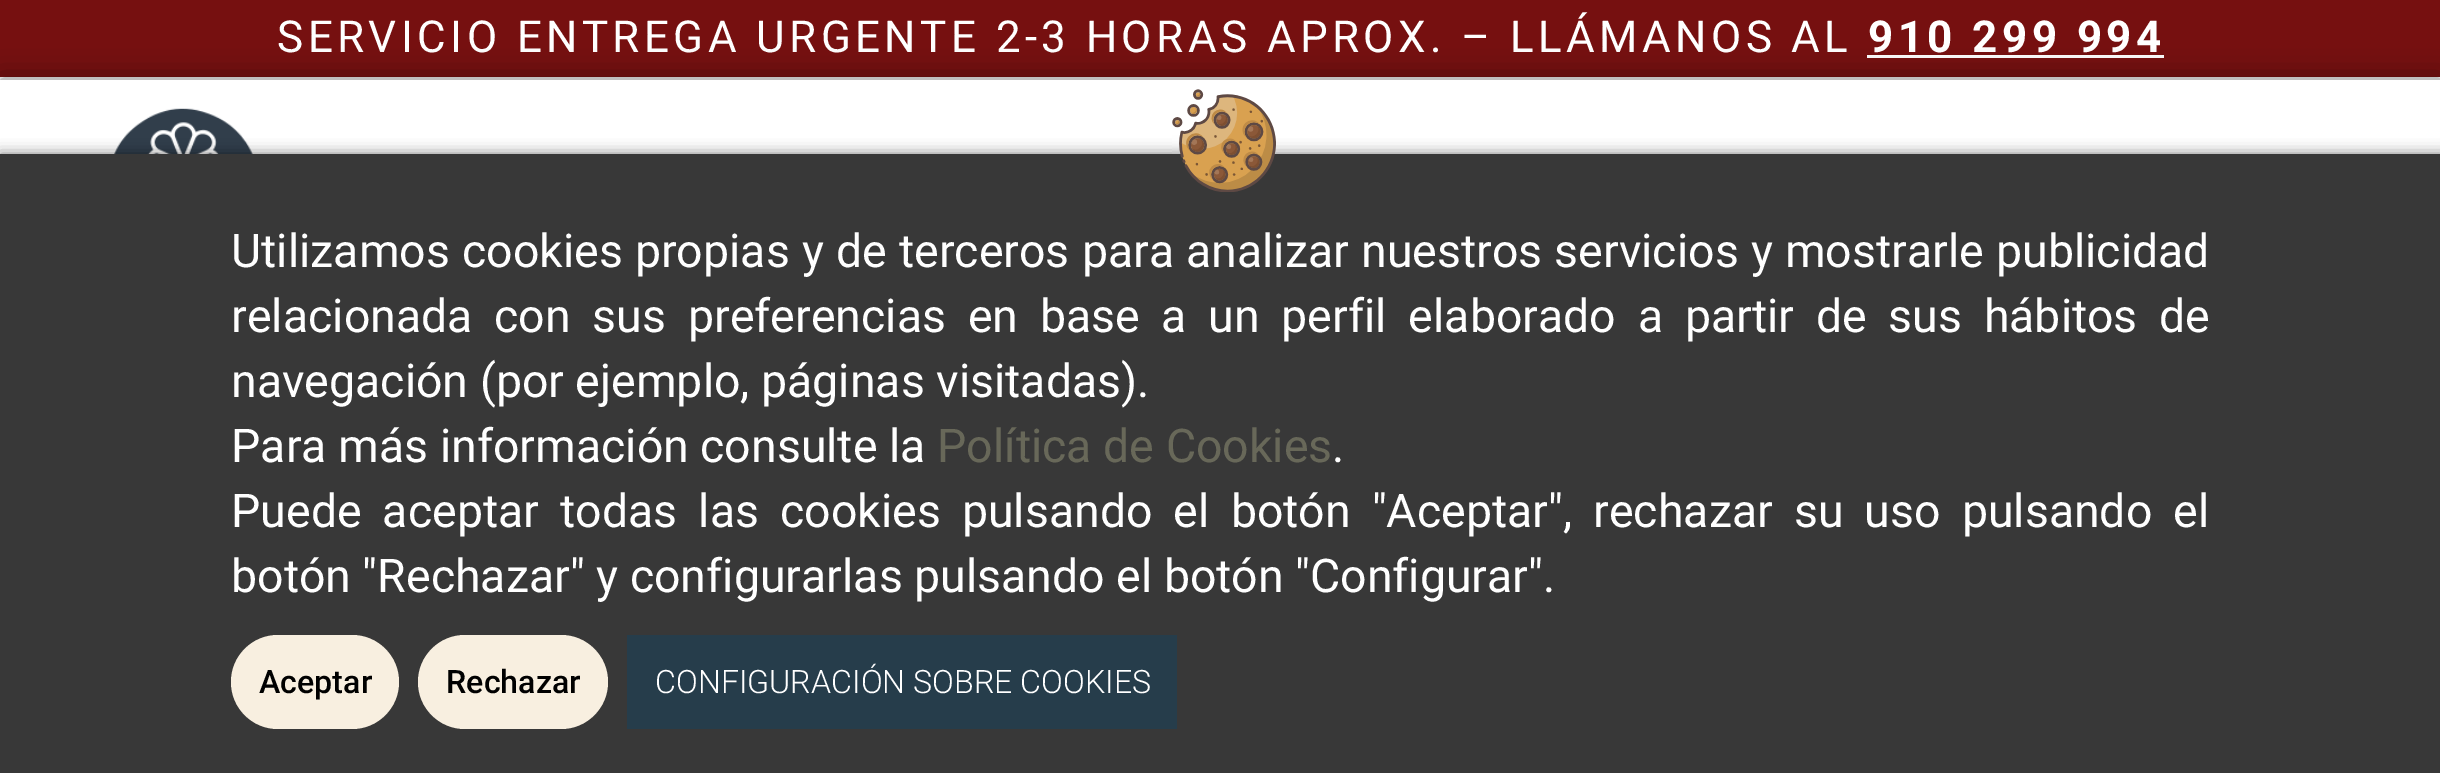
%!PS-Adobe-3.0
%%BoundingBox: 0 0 2440 773
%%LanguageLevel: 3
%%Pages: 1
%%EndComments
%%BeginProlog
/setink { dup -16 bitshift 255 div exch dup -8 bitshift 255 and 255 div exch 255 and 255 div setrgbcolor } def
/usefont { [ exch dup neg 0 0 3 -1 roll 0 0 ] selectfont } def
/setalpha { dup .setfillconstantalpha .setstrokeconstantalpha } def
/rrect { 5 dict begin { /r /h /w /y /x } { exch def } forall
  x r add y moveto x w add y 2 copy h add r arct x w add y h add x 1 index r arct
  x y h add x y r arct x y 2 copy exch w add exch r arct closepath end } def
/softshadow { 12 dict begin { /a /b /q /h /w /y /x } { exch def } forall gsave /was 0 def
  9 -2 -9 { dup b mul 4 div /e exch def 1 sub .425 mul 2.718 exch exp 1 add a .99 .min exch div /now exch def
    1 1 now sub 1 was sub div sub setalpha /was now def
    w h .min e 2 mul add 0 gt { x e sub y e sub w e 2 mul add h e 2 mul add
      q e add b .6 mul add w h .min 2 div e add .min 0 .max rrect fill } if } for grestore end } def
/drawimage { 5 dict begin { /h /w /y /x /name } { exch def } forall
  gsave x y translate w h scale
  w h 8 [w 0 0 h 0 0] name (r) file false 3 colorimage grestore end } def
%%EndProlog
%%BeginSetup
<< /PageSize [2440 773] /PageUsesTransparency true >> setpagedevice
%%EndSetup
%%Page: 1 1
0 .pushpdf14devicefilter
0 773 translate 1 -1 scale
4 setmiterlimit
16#FFFFFF setink
0 0 2440 773 rectfill
16#761010 setink
0 0 2440 77 rectfill
/Roboto-Regular 44 usefont
16#FFFFFF setink
277 52 moveto 4.4 0 (SERVICIO ENTREGA URGENTE 2-3 HORAS APROX. – LLÁMANOS AL) ashow
/Roboto-Bold 44 usefont
1868 52 moveto 4.4 0 (910 299 994) ashow
1867 55 297 3 rectfill
16#000000 setink
0 80 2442 360 0 14 0.5 softshadow
16#FFFFFF setink
0 80 2440 74 rectfill
(img1.raw) 114 108 139 46 drawimage
16#000000 setink
0 154 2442 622 0 7 0.5 softshadow
16#383838 setink
0 154 2440 619 rectfill
(img2.raw) 1172 89 104 103 drawimage
/Roboto-Regular 46.45 usefont
16#FFFFFF setink
231 267 moveto 0.6 0 32 (Utilizamos cookies propias y de terceros para analizar nuestros servicios y mostrarle publicidad) widthshow
231 332 moveto 10.25 0 32 (relacionada con sus preferencias en base a un perfil elaborado a partir de sus hábitos de) widthshow
231 397 moveto (navegación \(por ejemplo, páginas visitadas\).) show
231 462 moveto (Para más información consulte la) show
16#686859 setink
937 462 moveto (Política de Cookies) show
16#FFFFFF setink
1332 462 moveto (.) show
231 527 moveto 9.6 0 32 (Puede aceptar todas las cookies pulsando el botón "Aceptar", rechazar su uso pulsando el) widthshow
231 592 moveto (botón "Rechazar" y configurarlas pulsando el botón "Configurar".) show
16#F8EFE0 setink
231 635 168 94 47 rrect fill
/Roboto-Medium 32.2 usefont
16#000000 setink
259 693 moveto (Aceptar) show
16#F8EFE0 setink
418 635 190 94 47 rrect fill
16#000000 setink
446 693 moveto (Rechazar) show
16#263D4B setink
627 635 550 94 rectfill
/Roboto-Light 32.2 usefont
16#FFFFFF setink
655 693 moveto (CONFIGURACIÓN SOBRE COOKIES) show
.poppdf14devicefilter showpage
%%EOF
